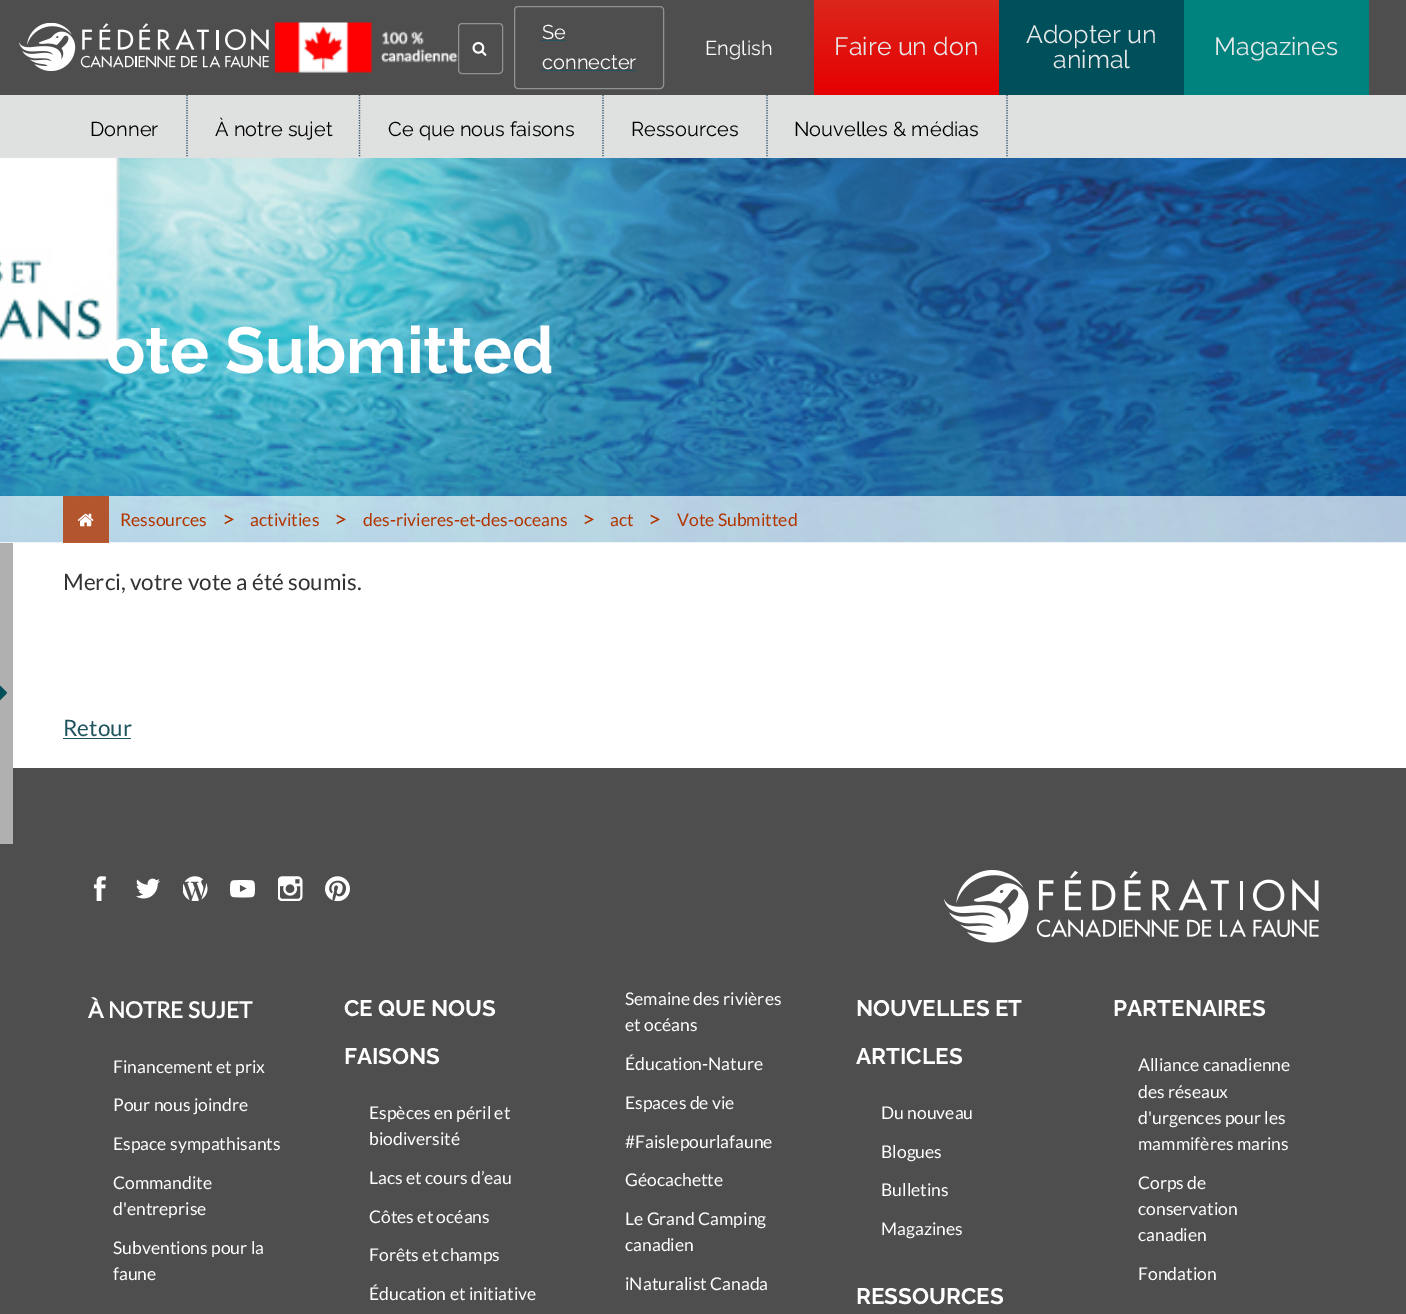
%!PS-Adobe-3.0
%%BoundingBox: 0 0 1406 1314
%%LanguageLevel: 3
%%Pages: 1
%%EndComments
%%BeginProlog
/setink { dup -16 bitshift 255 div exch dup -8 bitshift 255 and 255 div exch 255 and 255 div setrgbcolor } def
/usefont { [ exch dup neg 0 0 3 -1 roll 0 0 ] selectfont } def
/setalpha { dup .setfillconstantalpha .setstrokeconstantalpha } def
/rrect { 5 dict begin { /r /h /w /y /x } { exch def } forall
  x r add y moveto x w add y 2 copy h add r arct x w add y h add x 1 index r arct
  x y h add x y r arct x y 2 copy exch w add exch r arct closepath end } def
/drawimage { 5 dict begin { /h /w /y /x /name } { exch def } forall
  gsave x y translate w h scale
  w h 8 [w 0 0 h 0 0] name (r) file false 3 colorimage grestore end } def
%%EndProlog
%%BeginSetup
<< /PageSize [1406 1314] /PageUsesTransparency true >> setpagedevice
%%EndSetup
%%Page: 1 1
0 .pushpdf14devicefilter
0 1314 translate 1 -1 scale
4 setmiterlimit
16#FFFFFF setink
0 0 1406 1314 rectfill
16#4E4E4E setink
0 0 1406 95 rectfill
(img1.raw) 19 23 250 48 drawimage
(img2.raw) 274 22 184 51 drawimage
16#909191 setink
458.5 23.5 44 50 3.5 rrect stroke
(img3.raw) 472 42 15 14 drawimage
514.5 6.5 149 82 3.5 rrect stroke
/Raleway-Regular 20 usefont
16#FFFFFF setink
542 39 moveto (Se) show
16#1F535D setink
541 40 25 1 rectfill
16#FFFFFF setink
542 69 moveto (connecter) show
16#1F535D setink
541 70 95 1 rectfill
16#FFFFFF setink
705 55 moveto (English) show
gsave 814 0 moveto 999 0 lineto 999 95 lineto 814 95 lineto closepath clip newpath
<< /ShadingType 2 /ColorSpace /DeviceRGB /Coords [906 0 906 95] /Extend [true true] /Function << /FunctionType 2 /Domain [0 1] /C0 [0.863 0.149 0.11] /C1 [0.898 0 0] /N 1 >> >> shfill grestore
/Raleway-Regular 25 usefont
16#E7E8E8 setink
834 55 moveto (Faire un don) show
16#00505C setink
999 0 185 95 rectfill
16#E7E8E8 setink
1026 43 moveto (Adopter un) show
1053 68 moveto (animal) show
16#00827F setink
1184 0 185 95 rectfill
16#E7E8E8 setink
1214 55 moveto (Magazines) show
16#DFE0E0 setink
0 95 1406 63 rectfill
16#365670 setink
1.2 setlinewidth
[1.25 1.25] 0 setdash
187 95 moveto 187 157.5 lineto stroke
/Raleway-Regular 20 usefont
16#000000 setink
90 136 moveto (Donner) show
16#365670 setink
359.5 95 moveto 359.5 157.5 lineto stroke
16#000000 setink
215 136 moveto (À notre sujet) show
16#365670 setink
603 95 moveto 603 157.5 lineto stroke
16#000000 setink
388 136 moveto (Ce que nous faisons) show
16#365670 setink
767 95 moveto 767 157.5 lineto stroke
16#000000 setink
631 136 moveto (Ressources) show
16#365670 setink
1007 95 moveto 1007 157.5 lineto stroke
16#000000 setink
794 136 moveto (Nouvelles & médias) show
(img4.raw) 0 158 1406 385 drawimage
/Raleway-Bold 65 usefont
16#FFFFFF setink
106 373 moveto (ote Submitted) show
0.67 setalpha
0 496 1406 47 rectfill
0.8 setalpha
16#B23500 setink
63 496 46 47 rectfill
1 setalpha
(img5.raw) 77 513 17 14 drawimage
/Lato-Regular 17.5 usefont
120 526 moveto (Ressources) show
/Lato-Regular 22.5 usefont
222 527 moveto (>) show
/Lato-Regular 17.5 usefont
250 526 moveto (activities) show
/Lato-Regular 22.5 usefont
334 527 moveto (>) show
/Lato-Regular 17.5 usefont
363 526 moveto (des-rivieres-et-des-oceans) show
/Lato-Regular 22.5 usefont
582 527 moveto (>) show
/Lato-Regular 17.5 usefont
610 526 moveto (act) show
/Lato-Regular 22.5 usefont
648 527 moveto (>) show
/Lato-Regular 17.5 usefont
677 526 moveto (Vote Submitted) show
16#4E4E4E setink
0 768 1406 546 rectfill
16#B0B0B0 setink
0 543 13 301 rectfill
(img6.raw) 0 685 7 16 drawimage
/Lato-Regular 22.5 usefont
16#333333 setink
63 590 moveto (Merci, votre vote a été soumis.) show
16#1F535D setink
63 736 moveto (Retour) show
63 738 68 1 rectfill
(img7.raw) 93 876 14 25 drawimage
(img8.raw) 136 878 24 21 drawimage
(img9.raw) 183 876 25 25 drawimage
(img10.raw) 230 880 25 18 drawimage
(img11.raw) 278 876 25 25 drawimage
(img12.raw) 325 876 25 25 drawimage
(img13.raw) 944 870 375 73 drawimage
/Lato-Bold 22.5 usefont
16#FFFFFF setink
88 1018 moveto (À NOTRE SUJET) show
/Lato-Regular 17.5 usefont
[
    [(Financement et prix) 113 1073]
    [(Pour nous joindre) 113 1111]
    [(Espace sympathisants) 113 1150]
    [(Commandite) 113 1189]
    [(d'entreprise) 113 1215]
    [(Subventions pour la) 113 1254]
    [(faune) 113 1280]
] { aload pop moveto show } forall
/Raleway-Bold 22.5 usefont
344 1016 moveto (CE QUE NOUS) show
344 1064 moveto (FAISONS) show
/Lato-Regular 17.5 usefont
[
    [(Espèces en péril et) 369 1119]
    [(biodiversité) 369 1145]
    [(Lacs et cours d’eau) 369 1184]
    [(Côtes et océans) 369 1223]
    [(Forêts et champs) 369 1261]
    [(Éducation et initiative) 369 1300]
    [(Semaine des rivières) 625 1005]
    [(et océans) 625 1031]
    [(Éducation-Nature) 625 1070]
    [(Espaces de vie) 625 1109]
    [(#Faislepourlafaune) 625 1148]
    [(Géocachette) 625 1186]
    [(Le Grand Camping) 625 1225]
    [(canadien) 625 1251]
    [(iNaturalist Canada) 625 1290]
] { aload pop moveto show } forall
/Raleway-Bold 22.5 usefont
856 1016 moveto (NOUVELLES ET) show
856 1064 moveto (ARTICLES) show
/Lato-Regular 17.5 usefont
[
    [(Du nouveau) 881 1119]
    [(Blogues) 881 1158]
    [(Bulletins) 881 1196]
    [(Magazines) 881 1235]
] { aload pop moveto show } forall
/Raleway-Bold 22.5 usefont
856 1304 moveto (RESSOURCES) show
1113 1016 moveto (PARTENAIRES) show
/Lato-Regular 17.5 usefont
[
    [(Alliance canadienne) 1138 1071]
    [(des réseaux) 1138 1098]
    [(d'urgences pour les) 1138 1124]
    [(mammifères marins) 1138 1150]
    [(Corps de) 1138 1189]
    [(conservation) 1138 1215]
    [(canadien) 1138 1241]
    [(Fondation) 1138 1280]
] { aload pop moveto show } forall
.poppdf14devicefilter showpage
%%EOF
